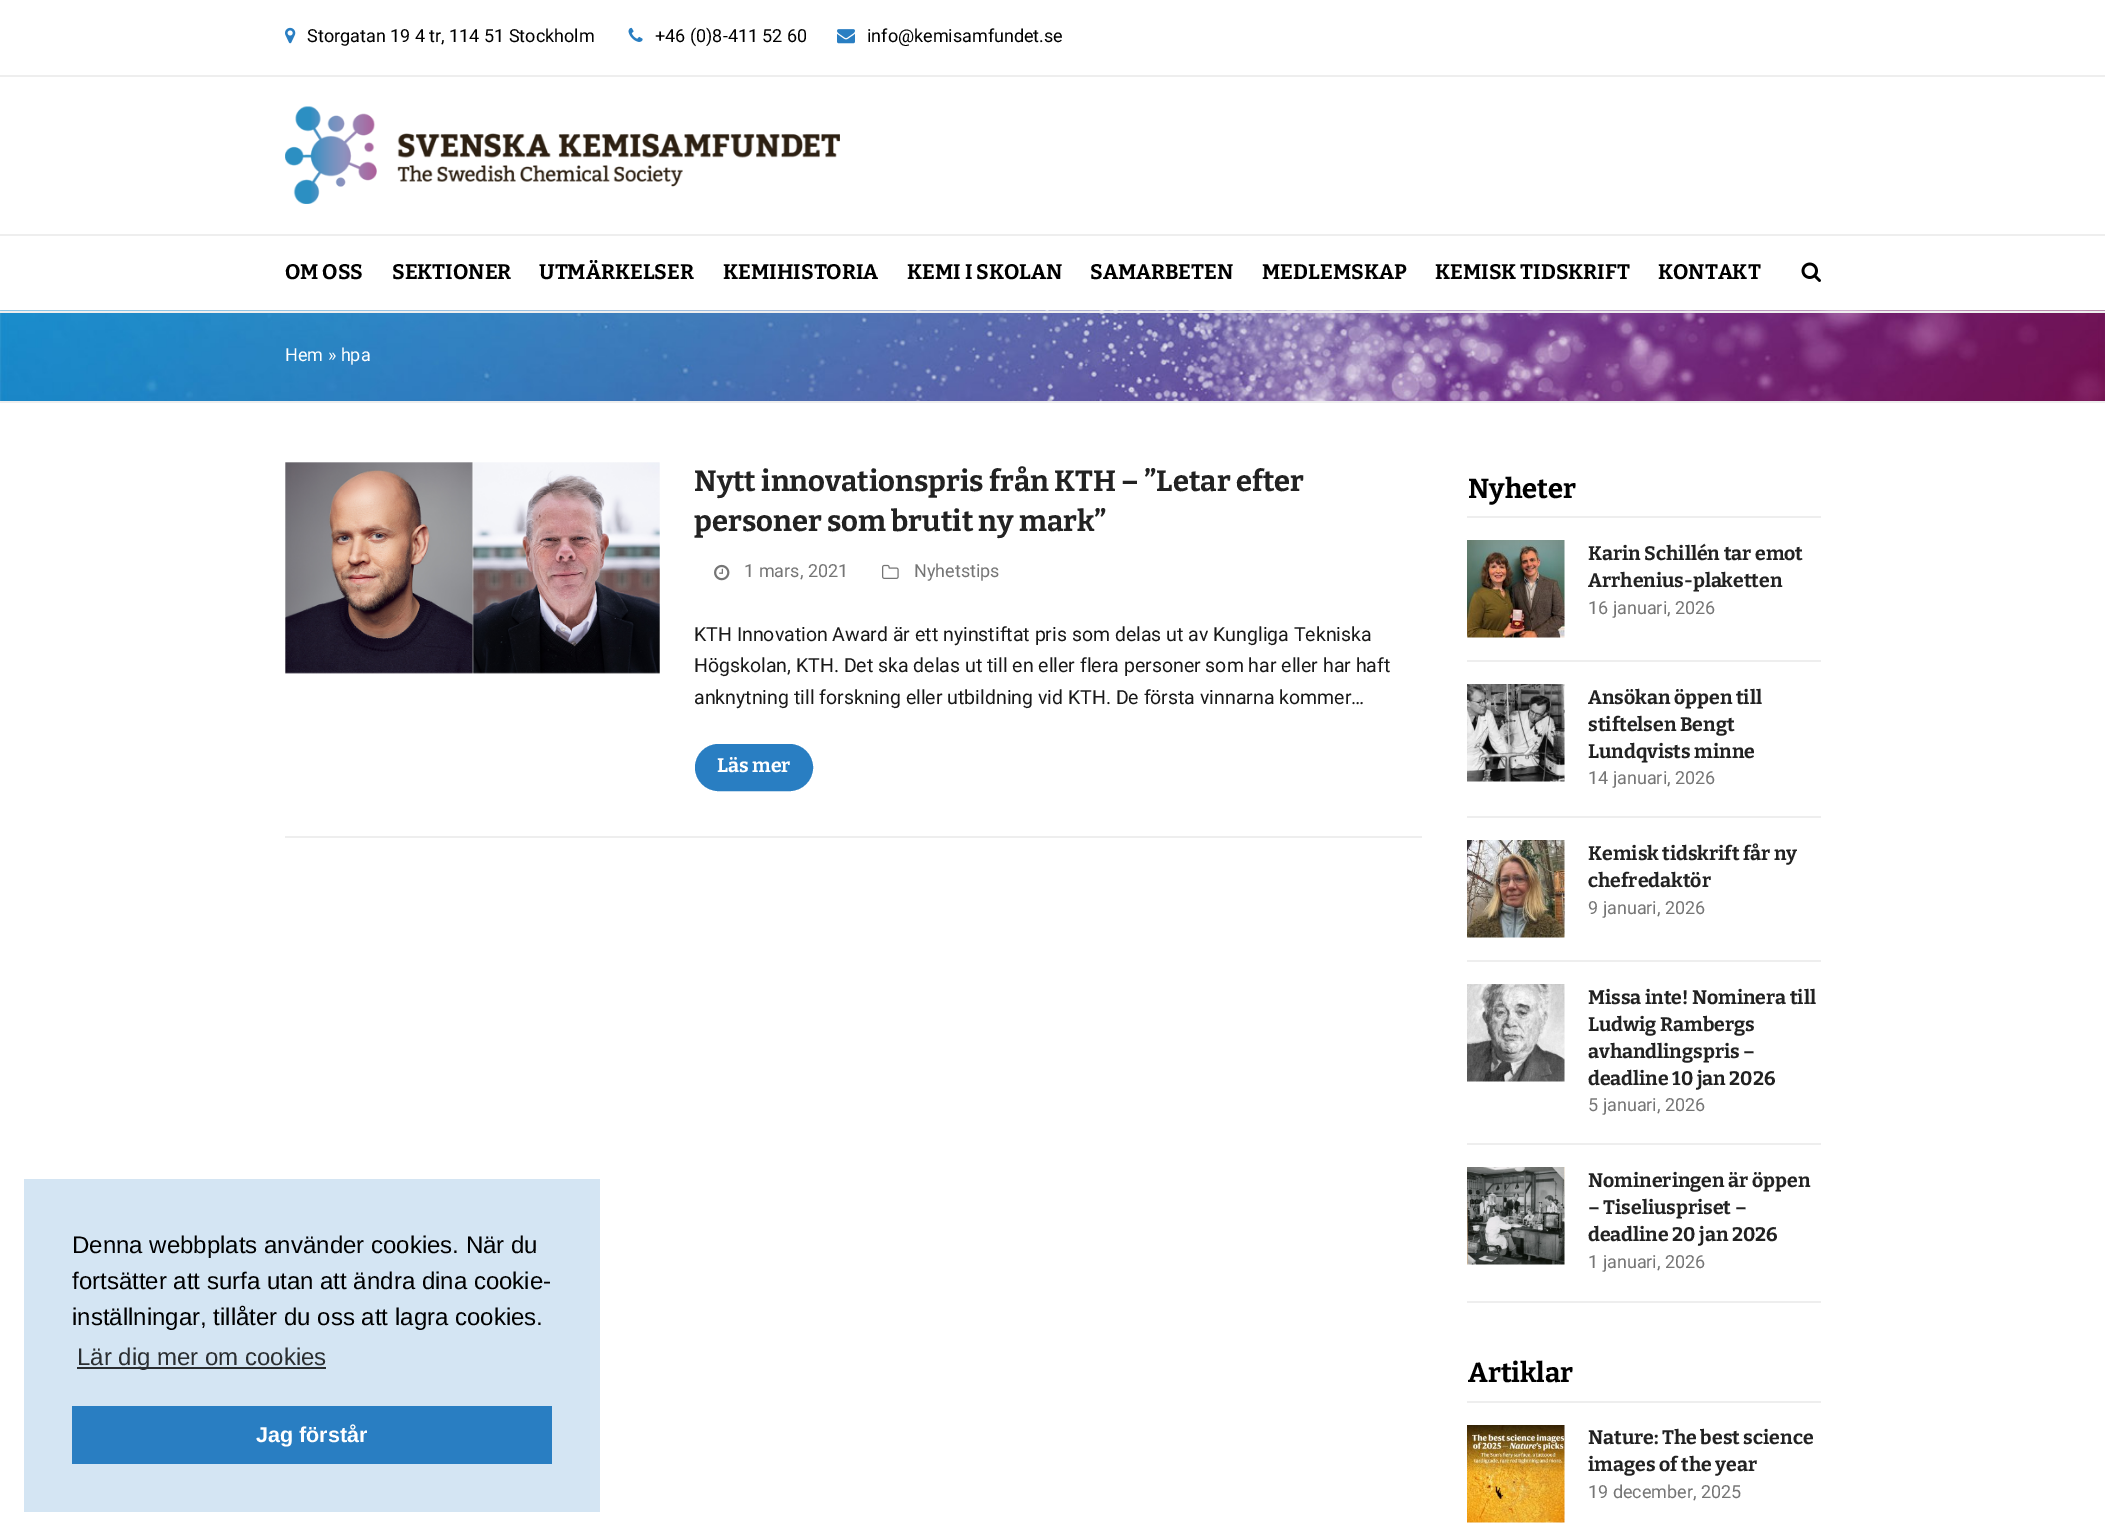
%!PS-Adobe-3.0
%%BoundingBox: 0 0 2105 1536
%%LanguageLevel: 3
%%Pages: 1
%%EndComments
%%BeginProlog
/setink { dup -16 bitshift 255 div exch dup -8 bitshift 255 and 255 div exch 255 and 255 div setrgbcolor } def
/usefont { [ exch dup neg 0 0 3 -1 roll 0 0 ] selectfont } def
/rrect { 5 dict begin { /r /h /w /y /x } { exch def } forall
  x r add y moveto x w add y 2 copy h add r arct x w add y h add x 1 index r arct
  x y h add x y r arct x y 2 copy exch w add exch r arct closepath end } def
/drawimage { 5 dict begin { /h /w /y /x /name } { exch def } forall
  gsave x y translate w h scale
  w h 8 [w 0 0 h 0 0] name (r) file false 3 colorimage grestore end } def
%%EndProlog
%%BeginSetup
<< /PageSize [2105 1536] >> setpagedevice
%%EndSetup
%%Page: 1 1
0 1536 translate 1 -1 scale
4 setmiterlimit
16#FFFFFF setink
0 0 2105 1536 rectfill
16#EEEEEE setink
0 75 2105 2 rectfill
(img1.raw) 285 27 11 17 drawimage
/Roboto-Regular 18 usefont
16#000000 setink
307 42 moveto (Storgatan 19 4 tr, 114 51 Stockholm) show
(img2.raw) 628 27 15 15 drawimage
655 42 moveto (+46 \(0\)8-411 52 60) show
(img3.raw) 837 29 18 15 drawimage
867 42 moveto (info@kemisamfundet.se) show
(img4.raw) 285 106 555 98 drawimage
16#EEEEEE setink
0 234 2105 2 rectfill
/Bitter-Bold 21 usefont
16#000000 setink
[
    [(OM OSS) 285 279]
    [(SEKTIONER) 392 279]
    [(UTMÄRKELSER) 539 279]
    [(KEMIHISTORIA) 723 279]
    [(KEMI I SKOLAN) 907 279]
    [(SAMARBETEN) 1090 279]
    [(MEDLEMSKAP) 1262 279]
    [(KEMISK TIDSKRIFT) 1435 279]
    [(KONTAKT) 1658 279]
] { aload pop moveto show } forall
(img5.raw) 1801 262 20 20 drawimage
(img6.raw) 0 310 2105 91 drawimage
16#EEEEEE setink
0 311 2105 2 rectfill
0 401 2105 2 rectfill
/Roboto-Regular 18 usefont
16#FFFFFF setink
285 361 moveto (Hem » hpa) show
(img7.raw) 285 462 375 212 drawimage
/Bitter-Bold 29.25 usefont
16#222222 setink
694 491 moveto (Nytt innovationspris från KTH – ”Letar efter) show
694 531 moveto (personer som brutit ny mark”) show
(img8.raw) 714 564 16 17 drawimage
/Roboto-Regular 18 usefont
16#757575 setink
744 577 moveto (1 mars, 2021) show
(img9.raw) 882 564 17 15 drawimage
914 577 moveto (Nyhetstips) show
/Roboto-Regular 19.5 usefont
16#191919 setink
[
    [(KTH Innovation Award är ett nyinstiftat pris som delas ut av Kungliga Tekniska) 694 641]
    [(Högskolan, KTH. Det ska delas ut till en eller flera personer som har eller har haft) 694 672]
    [(anknytning till forskning eller utbildning vid KTH. De första vinnarna kommer…) 694 704]
] { aload pop moveto show } forall
16#297EC2 setink
696 745 116 45 22.5 rrect gsave fill grestore
2 setlinewidth
stroke
/Bitter-Bold 19.5 usefont
16#FFFFFF setink
717 772 moveto (Läs mer) show
16#EEEEEE setink
285 836 1137 2 rectfill
/Bitter-Bold 27.5 usefont
16#000000 setink
1468 498 moveto (Nyheter) show
16#EEEEEE setink
1467 516 354 2 rectfill
1467 660 354 2 rectfill
(img10.raw) 1467 540 98 98 drawimage
/Bitter-Bold 19.5 usefont
16#222222 setink
1588 560 moveto (Karin Schillén tar emot) show
1588 587 moveto (Arrhenius-plaketten) show
/Roboto-Regular 18 usefont
16#757575 setink
1588 614 moveto (16 januari, 2026) show
16#EEEEEE setink
1467 816 354 2 rectfill
(img11.raw) 1467 684 98 98 drawimage
/Bitter-Bold 19.5 usefont
16#222222 setink
[
    [(Ansökan öppen till) 1588 704]
    [(stiftelsen Bengt) 1588 731]
    [(Lundqvists minne) 1588 758]
] { aload pop moveto show } forall
/Roboto-Regular 18 usefont
16#757575 setink
1588 784 moveto (14 januari, 2026) show
16#EEEEEE setink
1467 960 354 2 rectfill
(img12.raw) 1467 840 98 98 drawimage
/Bitter-Bold 19.5 usefont
16#222222 setink
1588 860 moveto (Kemisk tidskrift får ny) show
1588 887 moveto (chefredaktör) show
/Roboto-Regular 18 usefont
16#757575 setink
1588 914 moveto (9 januari, 2026) show
16#EEEEEE setink
1467 1143 354 2 rectfill
(img13.raw) 1467 984 98 98 drawimage
/Bitter-Bold 19.5 usefont
16#222222 setink
[
    [(Missa inte! Nominera till) 1588 1004]
    [(Ludwig Rambergs) 1588 1031]
    [(avhandlingspris –) 1588 1058]
    [(deadline 10 jan 2026) 1588 1085]
] { aload pop moveto show } forall
/Roboto-Regular 18 usefont
16#757575 setink
1588 1111 moveto (5 januari, 2026) show
16#EEEEEE setink
1467 1301 354 2 rectfill
(img14.raw) 1467 1167 98 98 drawimage
/Bitter-Bold 19.5 usefont
16#222222 setink
[
    [(Nomineringen är öppen) 1588 1187]
    [(– Tiseliuspriset –) 1588 1214]
    [(deadline 20 jan 2026) 1588 1241]
] { aload pop moveto show } forall
/Roboto-Regular 18 usefont
16#757575 setink
1588 1268 moveto (1 januari, 2026) show
/Bitter-Bold 27.5 usefont
16#000000 setink
1468 1382 moveto (Artiklar) show
16#EEEEEE setink
1467 1401 354 2 rectfill
(img15.raw) 1467 1425 98 98 drawimage
/Bitter-Bold 19.5 usefont
16#222222 setink
1588 1444 moveto (Nature: The best science) show
1588 1471 moveto (images of the year) show
/Roboto-Regular 18 usefont
16#757575 setink
1588 1498 moveto (19 december, 2025) show
16#D4E5F3 setink
24 1179 576 333 rectfill
/LiberationSans-Regular 24 usefont
16#000000 setink
[
    [(Denna webbplats använder cookies. När du) 72 1253]
    [(fortsätter att surfa utan att ändra dina cookie-) 72 1289]
    [(inställningar, tillåter du oss att lagra cookies.) 72 1325]
] { aload pop moveto show } forall
16#2A2E31 setink
77 1367 249 2 rectfill
77 1365 moveto (Lär dig mer om cookies) show
16#297EC2 setink
72 1406 480 58 rectfill
/LiberationSans-Bold 21.5 usefont
16#FFFFFF setink
256 1442 moveto (Jag förstår) show
showpage
%%EOF
